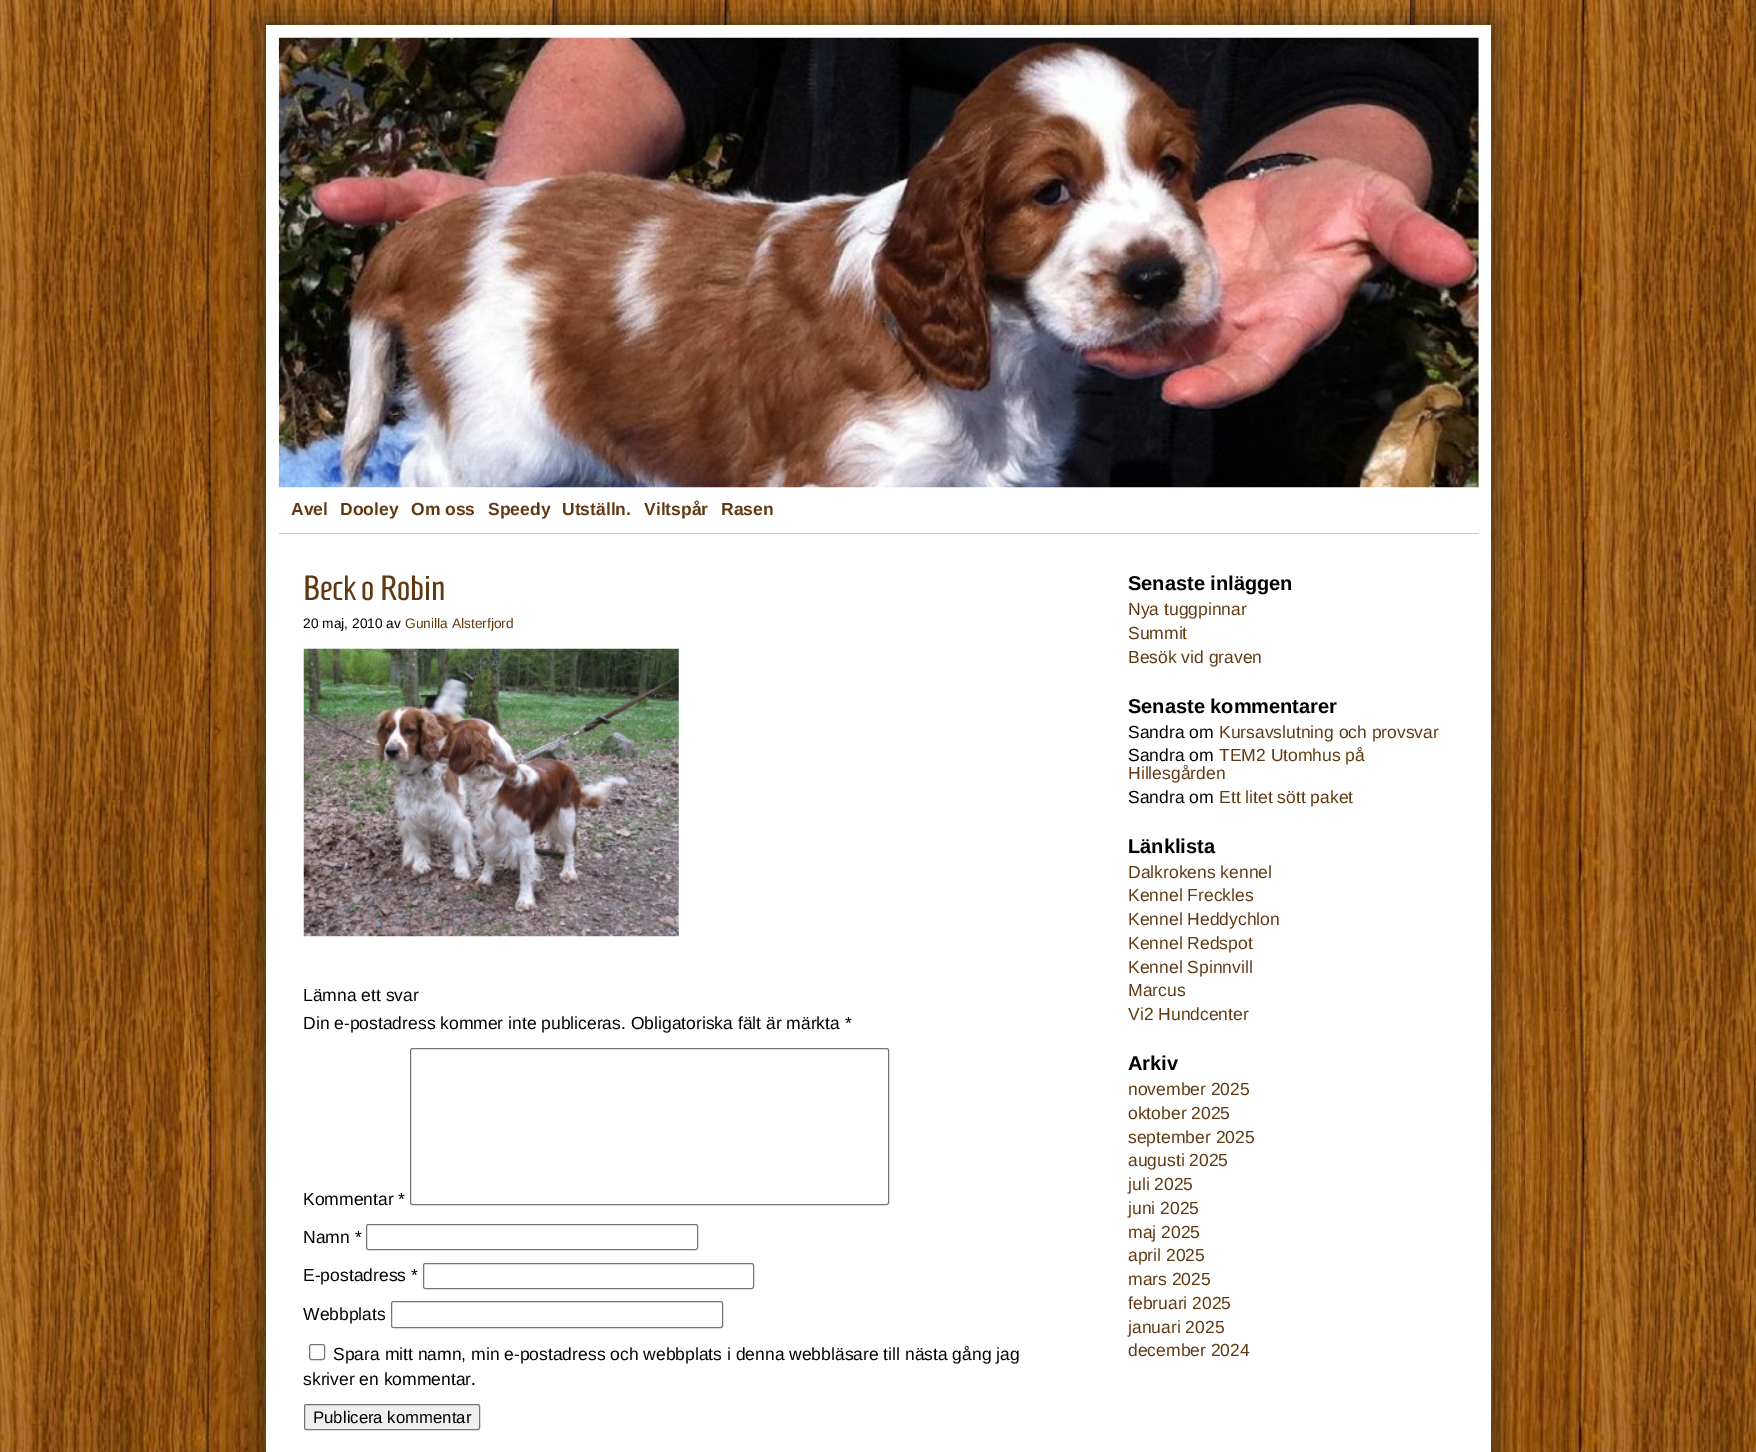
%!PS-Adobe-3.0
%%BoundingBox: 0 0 1756 1452
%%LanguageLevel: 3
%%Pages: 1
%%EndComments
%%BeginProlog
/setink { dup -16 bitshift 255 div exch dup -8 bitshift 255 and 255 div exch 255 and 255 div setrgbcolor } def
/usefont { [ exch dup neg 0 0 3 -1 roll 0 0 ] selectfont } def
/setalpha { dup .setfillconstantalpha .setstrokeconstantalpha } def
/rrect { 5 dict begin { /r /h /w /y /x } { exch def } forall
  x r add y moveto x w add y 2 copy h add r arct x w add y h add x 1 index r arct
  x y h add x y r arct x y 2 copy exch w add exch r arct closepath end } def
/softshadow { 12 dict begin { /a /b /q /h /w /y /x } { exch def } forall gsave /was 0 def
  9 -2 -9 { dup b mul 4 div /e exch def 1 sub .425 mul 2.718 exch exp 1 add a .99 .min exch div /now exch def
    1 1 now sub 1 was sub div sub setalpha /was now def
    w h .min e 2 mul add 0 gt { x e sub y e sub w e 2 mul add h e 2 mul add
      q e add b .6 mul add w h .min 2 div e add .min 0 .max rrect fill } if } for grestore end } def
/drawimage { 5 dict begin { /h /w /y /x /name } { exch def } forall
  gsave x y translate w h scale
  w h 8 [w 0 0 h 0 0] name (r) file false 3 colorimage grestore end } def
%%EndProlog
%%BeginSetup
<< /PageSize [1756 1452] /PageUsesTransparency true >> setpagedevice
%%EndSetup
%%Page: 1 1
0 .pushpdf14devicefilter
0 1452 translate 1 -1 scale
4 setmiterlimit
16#FFFFFF setink
0 0 1756 1452 rectfill
(img1.raw) 0 0 1756 1452 drawimage
16#141414 setink
260 19 1238 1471 0 12.5 0.5 softshadow
16#FFFFFF setink
266 25 1225 1427 rectfill
(img2.raw) 278 37 1201 451 drawimage
16#CCCCCC setink
279 533 1200 1 rectfill
/LiberationSans-Bold 17.5 usefont
16#603913 setink
[
    [(Avel) 291 515]
    [(Dooley) 340 515]
    [(Om oss) 411 515]
    [(Speedy) 488 515]
    [(Utställn.) 562 515]
    [(Viltspår) 644 515]
    [(Rasen) 721 515]
] { aload pop moveto show } forall
/Homenaje-Regular 35 usefont
303 600 moveto (Beck o Robin) show
/LiberationSans-Regular 13.75 usefont
16#000000 setink
303 628 moveto (20 maj, 2010 av) show
16#603913 setink
405 628 moveto (Gunilla Alsterfjord) show
(img3.raw) 303 648 376 289 drawimage
/LiberationSans-Regular 17.5 usefont
16#000000 setink
[
    [(Lämna ett svar) 303 1001]
    [(Din e-postadress kommer inte publiceras. Obligatoriska fält är märkta *) 303 1029]
    [(Kommentar *) 303 1205]
] { aload pop moveto show } forall
16#767676 setink
410.5 1048.5 478 156 2 rrect stroke
16#000000 setink
303 1243 moveto (Namn *) show
16#767676 setink
366.5 1224.5 331 25 2 rrect stroke
16#000000 setink
303 1281 moveto (E-postadress *) show
16#767676 setink
423.5 1263.5 330 25 2 rrect stroke
16#000000 setink
303 1320 moveto (Webbplats) show
16#767676 setink
391.5 1301.5 331 26 2 rrect stroke
309.5 1344.5 15 15 2 rrect stroke
16#000000 setink
333 1360 moveto (Spara mitt namn, min e-postadress och webbplats i denna webbläsare till nästa gång jag) show
303 1385 moveto (skriver en kommentar.) show
16#EFEFEF setink
304.5 1404.5 175 25 2 rrect gsave fill grestore
16#767676 setink
stroke
/LiberationSans-Regular 16.75 usefont
16#000000 setink
313 1423 moveto (Publicera kommentar) show
/LiberationSans-Bold 20 usefont
1128 590 moveto (Senaste inläggen) show
/LiberationSans-Regular 17.5 usefont
16#603913 setink
[
    [(Nya tuggpinnar) 1128 615]
    [(Summit) 1128 639]
    [(Besök vid graven) 1128 663]
] { aload pop moveto show } forall
/LiberationSans-Bold 20 usefont
16#000000 setink
1128 713 moveto (Senaste kommentarer) show
/LiberationSans-Regular 17.5 usefont
1128 738 moveto (Sandra om) show
16#603913 setink
1219 738 moveto (Kursavslutning och provsvar) show
16#000000 setink
1128 761 moveto (Sandra om) show
16#603913 setink
1219 761 moveto (TEM2 Utomhus på) show
1128 779 moveto (Hillesgården) show
16#000000 setink
1128 803 moveto (Sandra om) show
16#603913 setink
1219 803 moveto (Ett litet sött paket) show
/LiberationSans-Bold 20 usefont
16#000000 setink
1128 853 moveto (Länklista) show
/LiberationSans-Regular 17.5 usefont
16#603913 setink
[
    [(Dalkrokens kennel) 1128 878]
    [(Kennel Freckles) 1128 901]
    [(Kennel Heddychlon) 1128 925]
    [(Kennel Redspot) 1128 949]
    [(Kennel Spinnvill) 1128 973]
    [(Marcus) 1128 996]
    [(Vi2 Hundcenter) 1128 1020]
] { aload pop moveto show } forall
/LiberationSans-Bold 20 usefont
16#000000 setink
1128 1070 moveto (Arkiv) show
/LiberationSans-Regular 17.5 usefont
16#603913 setink
[
    [(november 2025) 1128 1095]
    [(oktober 2025) 1128 1119]
    [(september 2025) 1128 1143]
    [(augusti 2025) 1128 1166]
    [(juli 2025) 1128 1190]
    [(juni 2025) 1128 1214]
    [(maj 2025) 1128 1238]
    [(april 2025) 1128 1261]
    [(mars 2025) 1128 1285]
    [(februari 2025) 1128 1309]
    [(januari 2025) 1128 1333]
    [(december 2024) 1128 1356]
] { aload pop moveto show } forall
.poppdf14devicefilter showpage
%%EOF
